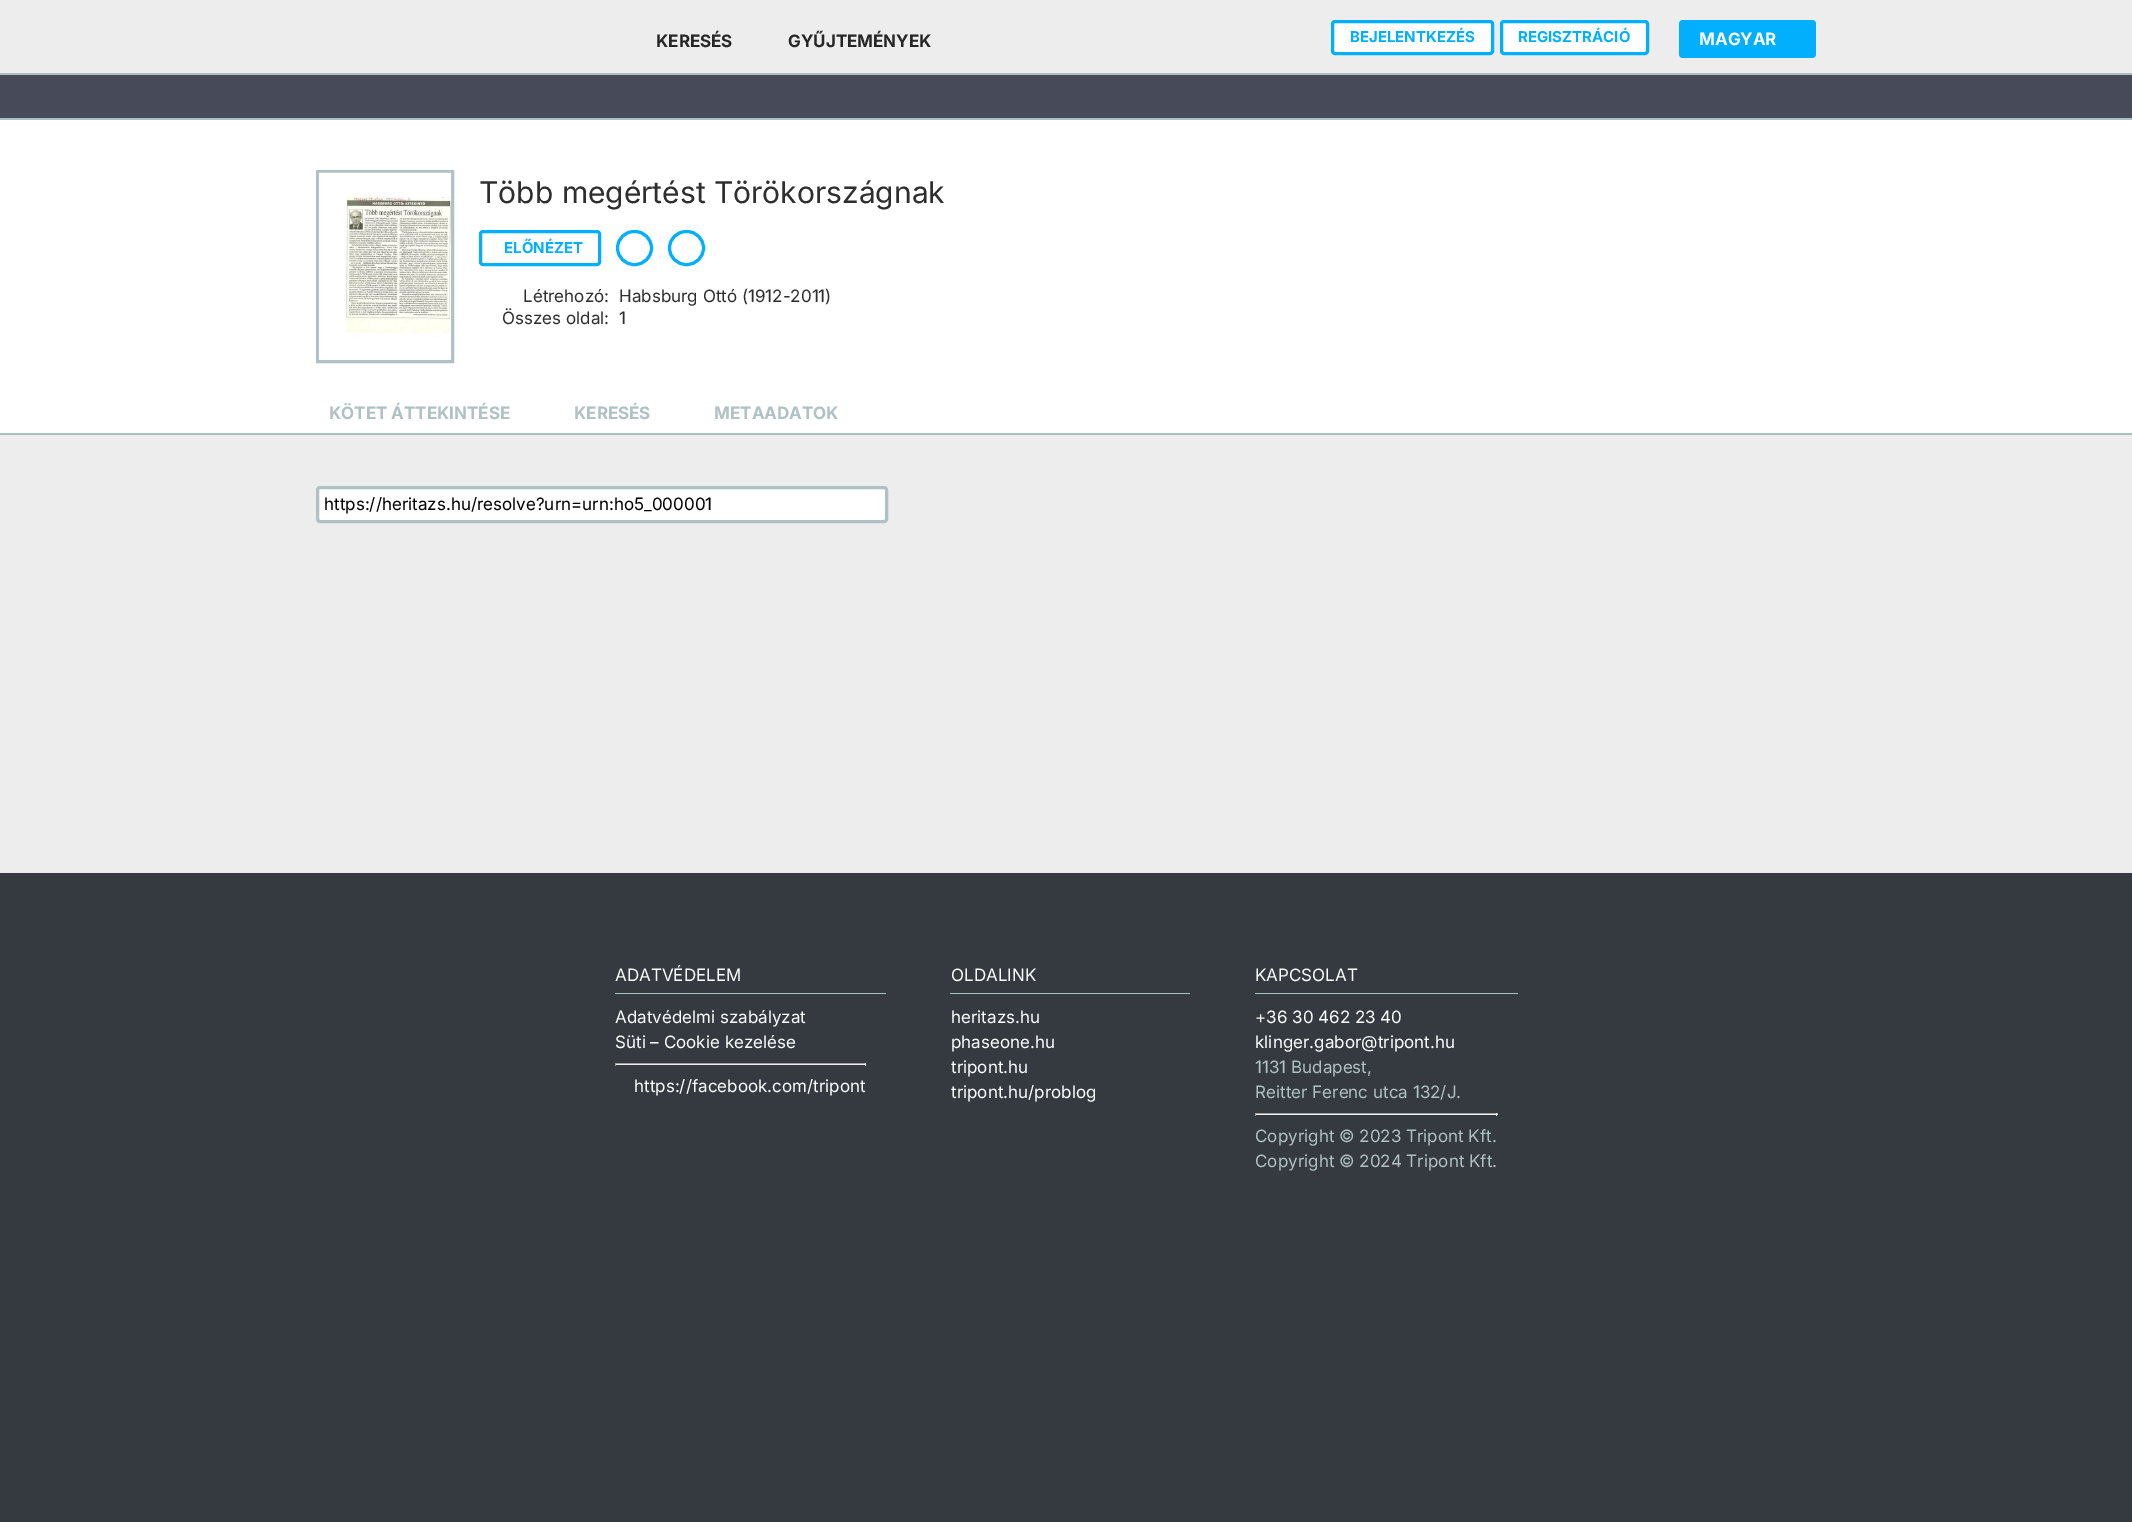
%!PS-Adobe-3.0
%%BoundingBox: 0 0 2132 1522
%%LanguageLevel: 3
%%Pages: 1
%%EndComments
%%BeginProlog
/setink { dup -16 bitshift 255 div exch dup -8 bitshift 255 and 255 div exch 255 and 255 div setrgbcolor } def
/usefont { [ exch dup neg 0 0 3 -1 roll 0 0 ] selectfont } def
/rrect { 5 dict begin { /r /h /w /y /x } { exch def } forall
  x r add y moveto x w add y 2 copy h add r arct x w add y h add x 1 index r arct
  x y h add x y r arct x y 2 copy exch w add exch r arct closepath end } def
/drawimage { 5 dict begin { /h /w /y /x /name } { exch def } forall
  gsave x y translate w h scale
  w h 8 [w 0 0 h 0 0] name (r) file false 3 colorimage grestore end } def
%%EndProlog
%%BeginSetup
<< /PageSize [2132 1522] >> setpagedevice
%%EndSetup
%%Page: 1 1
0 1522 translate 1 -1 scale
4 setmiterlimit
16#343A40 setink
0 0 2132 1522 rectfill
16#EDEDED setink
0 0 2132 73 rectfill
16#AAC0C1 setink
0 73 2132 2 rectfill
/Inter-Bold 17 usefont
16#262626 setink
656 47 moveto (KERESÉS) show
788 47 moveto (GYŰJTEMÉNYEK) show
16#FFFFFF setink
1332.5 21.5 160 32 2.5 rrect gsave fill grestore
16#01AFFC setink
3 setlinewidth
stroke
/Inter-Bold 15 usefont
1350 42 moveto (BEJELENTKEZÉS) show
16#FFFFFF setink
1501.5 21.5 146 32 2.5 rrect gsave fill grestore
16#01AFFC setink
stroke
1518 42 moveto (REGISZTRÁCIÓ) show
1679 20 137 38 4 rrect fill
/Inter-Bold 17 usefont
16#FFFFFF setink
1699 45 moveto (MAGYAR) show
[
    [0 75 2132 43 16#474A59]
    [0 118 2132 2 16#AAC0C1]
    [0 120 2132 313 16#FFFFFF]
] { aload pop setink rectfill } forall
16#AFC1C3 setink
317.5 171.5 135 190 rectstroke
(img1.raw) 318 172 134 188 drawimage
/Inter-Regular 30 usefont
16#2E2E2E setink
479 203 moveto (Több megértést Törökországnak) show
16#01AFFC setink
480.5 231.5 119 33 2.5 rrect stroke
/Inter-Bold 15 usefont
504 253 moveto (ELŐNÉZET) show
617.5 231.5 34 33 16.5 rrect stroke
669.5 231.5 34 33 16.5 rrect stroke
/Inter-Regular 17 usefont
16#2E2E2E setink
[
    [(Létrehozó:) 523 302]
    [(Habsburg Ottó \(1912-2011\)) 619 302]
    [(Összes oldal:) 502 324]
    [(1) 619 324]
] { aload pop moveto show } forall
16#AAC0C1 setink
0 433 2132 2 rectfill
/Inter-Bold 17 usefont
16#AFC1C3 setink
[
    [(KÖTET ÁTTEKINTÉSE) 329 419]
    [(KERESÉS) 574 419]
    [(METAADATOK) 714 419]
] { aload pop moveto show } forall
16#EDEDED setink
0 435 2132 438 rectfill
16#FFFFFF setink
317.5 487.5 569 34 2.5 rrect gsave fill grestore
16#AFC1C3 setink
stroke
/Inter-Regular 17 usefont
16#000000 setink
324 510 moveto (https://heritazs.hu/resolve?urn=urn:ho5_000001) show
16#AAC0C1 setink
615 993 271 1 rectfill
16#FFFFFF setink
[
    [(ADATVÉDELEM) 615 981]
    [(Adatvédelmi szabályzat) 615 1023]
    [(Süti – Cookie kezelése) 615 1048]
] { aload pop moveto show } forall
[
    [615 1063 251 1 16#9F9F9F]
    [865 1063 1 3 16#EEEEEE]
    [615 1064 251 1 16#EEEEEE]
    [615 1063 1 3 16#9F9F9F]
] { aload pop setink rectfill } forall
16#FFFFFF setink
634 1092 moveto (https://facebook.com/tripont) show
16#AAC0C1 setink
950 993 240 1 rectfill
16#FFFFFF setink
[
    [(OLDALINK) 951 981]
    [(heritazs.hu) 951 1023]
    [(phaseone.hu) 951 1048]
    [(tripont.hu) 951 1073]
    [(tripont.hu/problog) 951 1098]
] { aload pop moveto show } forall
16#AAC0C1 setink
1255 993 263 1 rectfill
16#FFFFFF setink
[
    [(KAPCSOLAT) 1255 981]
    [(+36 30 462 23 40) 1255 1023]
    [(klinger.gabor@tripont.hu) 1255 1048]
] { aload pop moveto show } forall
16#AFC1C3 setink
1255 1073 moveto (1131 Budapest,) show
1255 1098 moveto (Reitter Ferenc utca 132/J.) show
[
    [1255 1113 243 1 16#9F9F9F]
    [1496 1113 1 3 16#EEEEEE]
    [1255 1114 243 1 16#EEEEEE]
    [1255 1113 1 3 16#9F9F9F]
] { aload pop setink rectfill } forall
16#AFC1C3 setink
1255 1142 moveto (Copyright © 2023 Tripont Kft.) show
1255 1167 moveto (Copyright © 2024 Tripont Kft.) show
showpage
%%EOF
